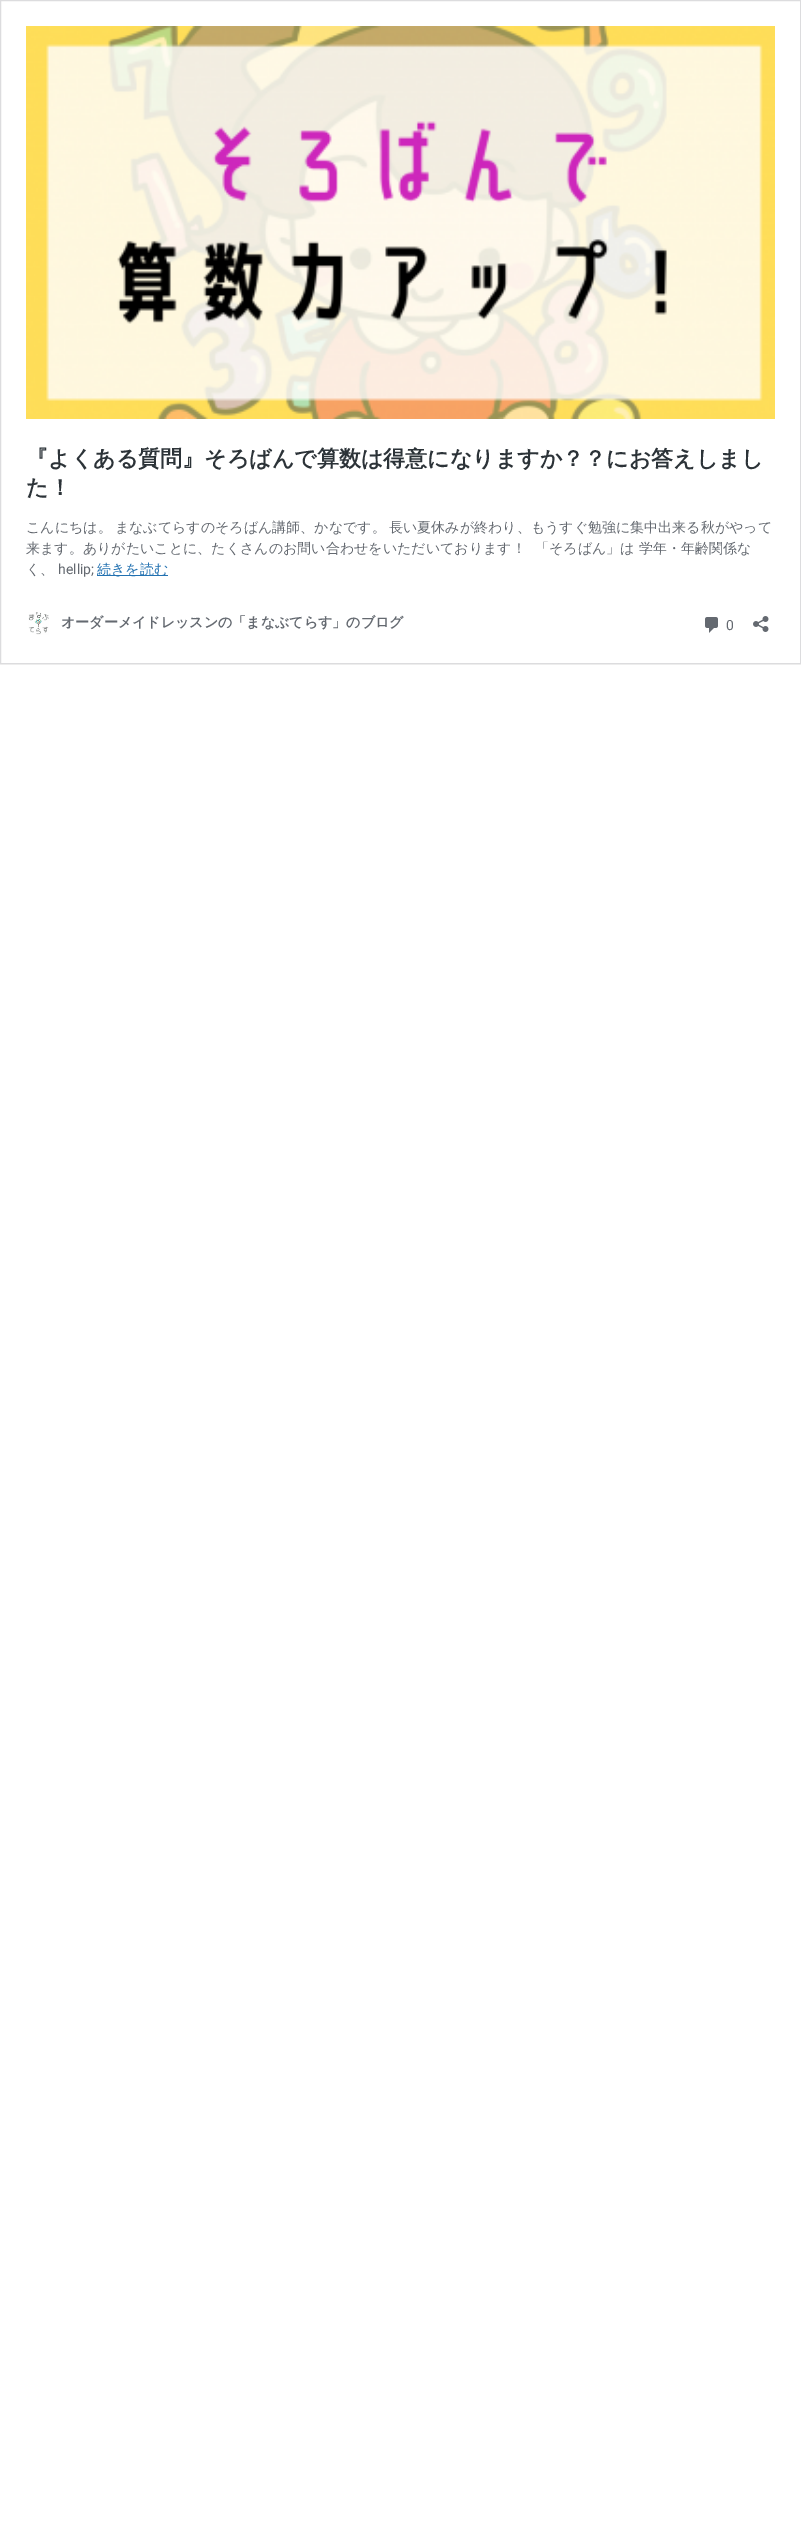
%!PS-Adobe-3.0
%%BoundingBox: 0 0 801 2545
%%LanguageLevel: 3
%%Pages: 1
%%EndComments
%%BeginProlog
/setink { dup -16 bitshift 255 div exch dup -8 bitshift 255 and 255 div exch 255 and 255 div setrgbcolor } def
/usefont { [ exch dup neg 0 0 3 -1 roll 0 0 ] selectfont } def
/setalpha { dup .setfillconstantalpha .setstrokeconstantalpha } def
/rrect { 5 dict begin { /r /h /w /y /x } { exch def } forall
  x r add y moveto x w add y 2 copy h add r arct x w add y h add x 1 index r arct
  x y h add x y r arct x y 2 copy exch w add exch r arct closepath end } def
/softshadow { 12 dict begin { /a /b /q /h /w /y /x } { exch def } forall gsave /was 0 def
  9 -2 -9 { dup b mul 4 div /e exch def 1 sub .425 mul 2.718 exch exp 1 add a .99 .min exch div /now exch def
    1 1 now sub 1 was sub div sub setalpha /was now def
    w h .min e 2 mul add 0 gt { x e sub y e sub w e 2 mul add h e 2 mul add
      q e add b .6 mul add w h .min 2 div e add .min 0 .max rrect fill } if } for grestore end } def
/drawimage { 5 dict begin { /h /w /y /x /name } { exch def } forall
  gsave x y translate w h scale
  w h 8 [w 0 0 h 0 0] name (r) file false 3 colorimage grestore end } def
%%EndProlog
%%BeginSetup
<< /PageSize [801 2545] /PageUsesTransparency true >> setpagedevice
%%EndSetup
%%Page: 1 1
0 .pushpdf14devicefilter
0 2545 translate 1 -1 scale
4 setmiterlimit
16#FFFFFF setink
0 0 801 2545 rectfill
gsave
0 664 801 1 rectclip
16#000000 setink
0 1 801 664 0 0.5 0.05 softshadow
grestore
16#DCDCDE setink
0.5 0.5 800 663 rectstroke
(img1.raw) 26 26 749 393 drawimage
/WenQuanYiZenHei-Bold 22 usefont
16#2C3338 setink
26 466 moveto (『よくある質問』そろばんで算数は得意になりますか？？にお答えしまし) show
26 495 moveto (た！) show
/WenQuanYiZenHei-Medium 14 usefont
16#646970 setink
26 532 moveto -1 0 32 (こんにちは。 まなぶてらすのそろばん講師、かなです。 長い夏休みが終わり、もうすぐ勉強に集中出来る秋がやって) widthshow
[
    [(来ます。ありがたいことに、たくさんのお問い合わせをいただいております！) 26 553]
    [(「そろばん」は 学年・年齢関係な) 535 553]
    [(く、) 26 574]
] { aload pop moveto show } forall
/Roboto-Regular 14 usefont
58 574 moveto (hellip;) show
16#2271B1 setink
97 575 71 1 rectfill
/WenQuanYiZenHei-Medium 14 usefont
97 574 moveto (続きを読む) show
(img2.raw) 28 612 21 23 drawimage
/WenQuanYiZenHei-Bold 14 usefont
16#646970 setink
61 627 moveto (オーダーメイドレッスンの「まなぶてらす」のブログ) show
(img3.raw) 705 617 13 16 drawimage
/Roboto-Regular 14 usefont
726 630 moveto (0) show
(img4.raw) 753 616 16 16 drawimage
.poppdf14devicefilter showpage
%%EOF
